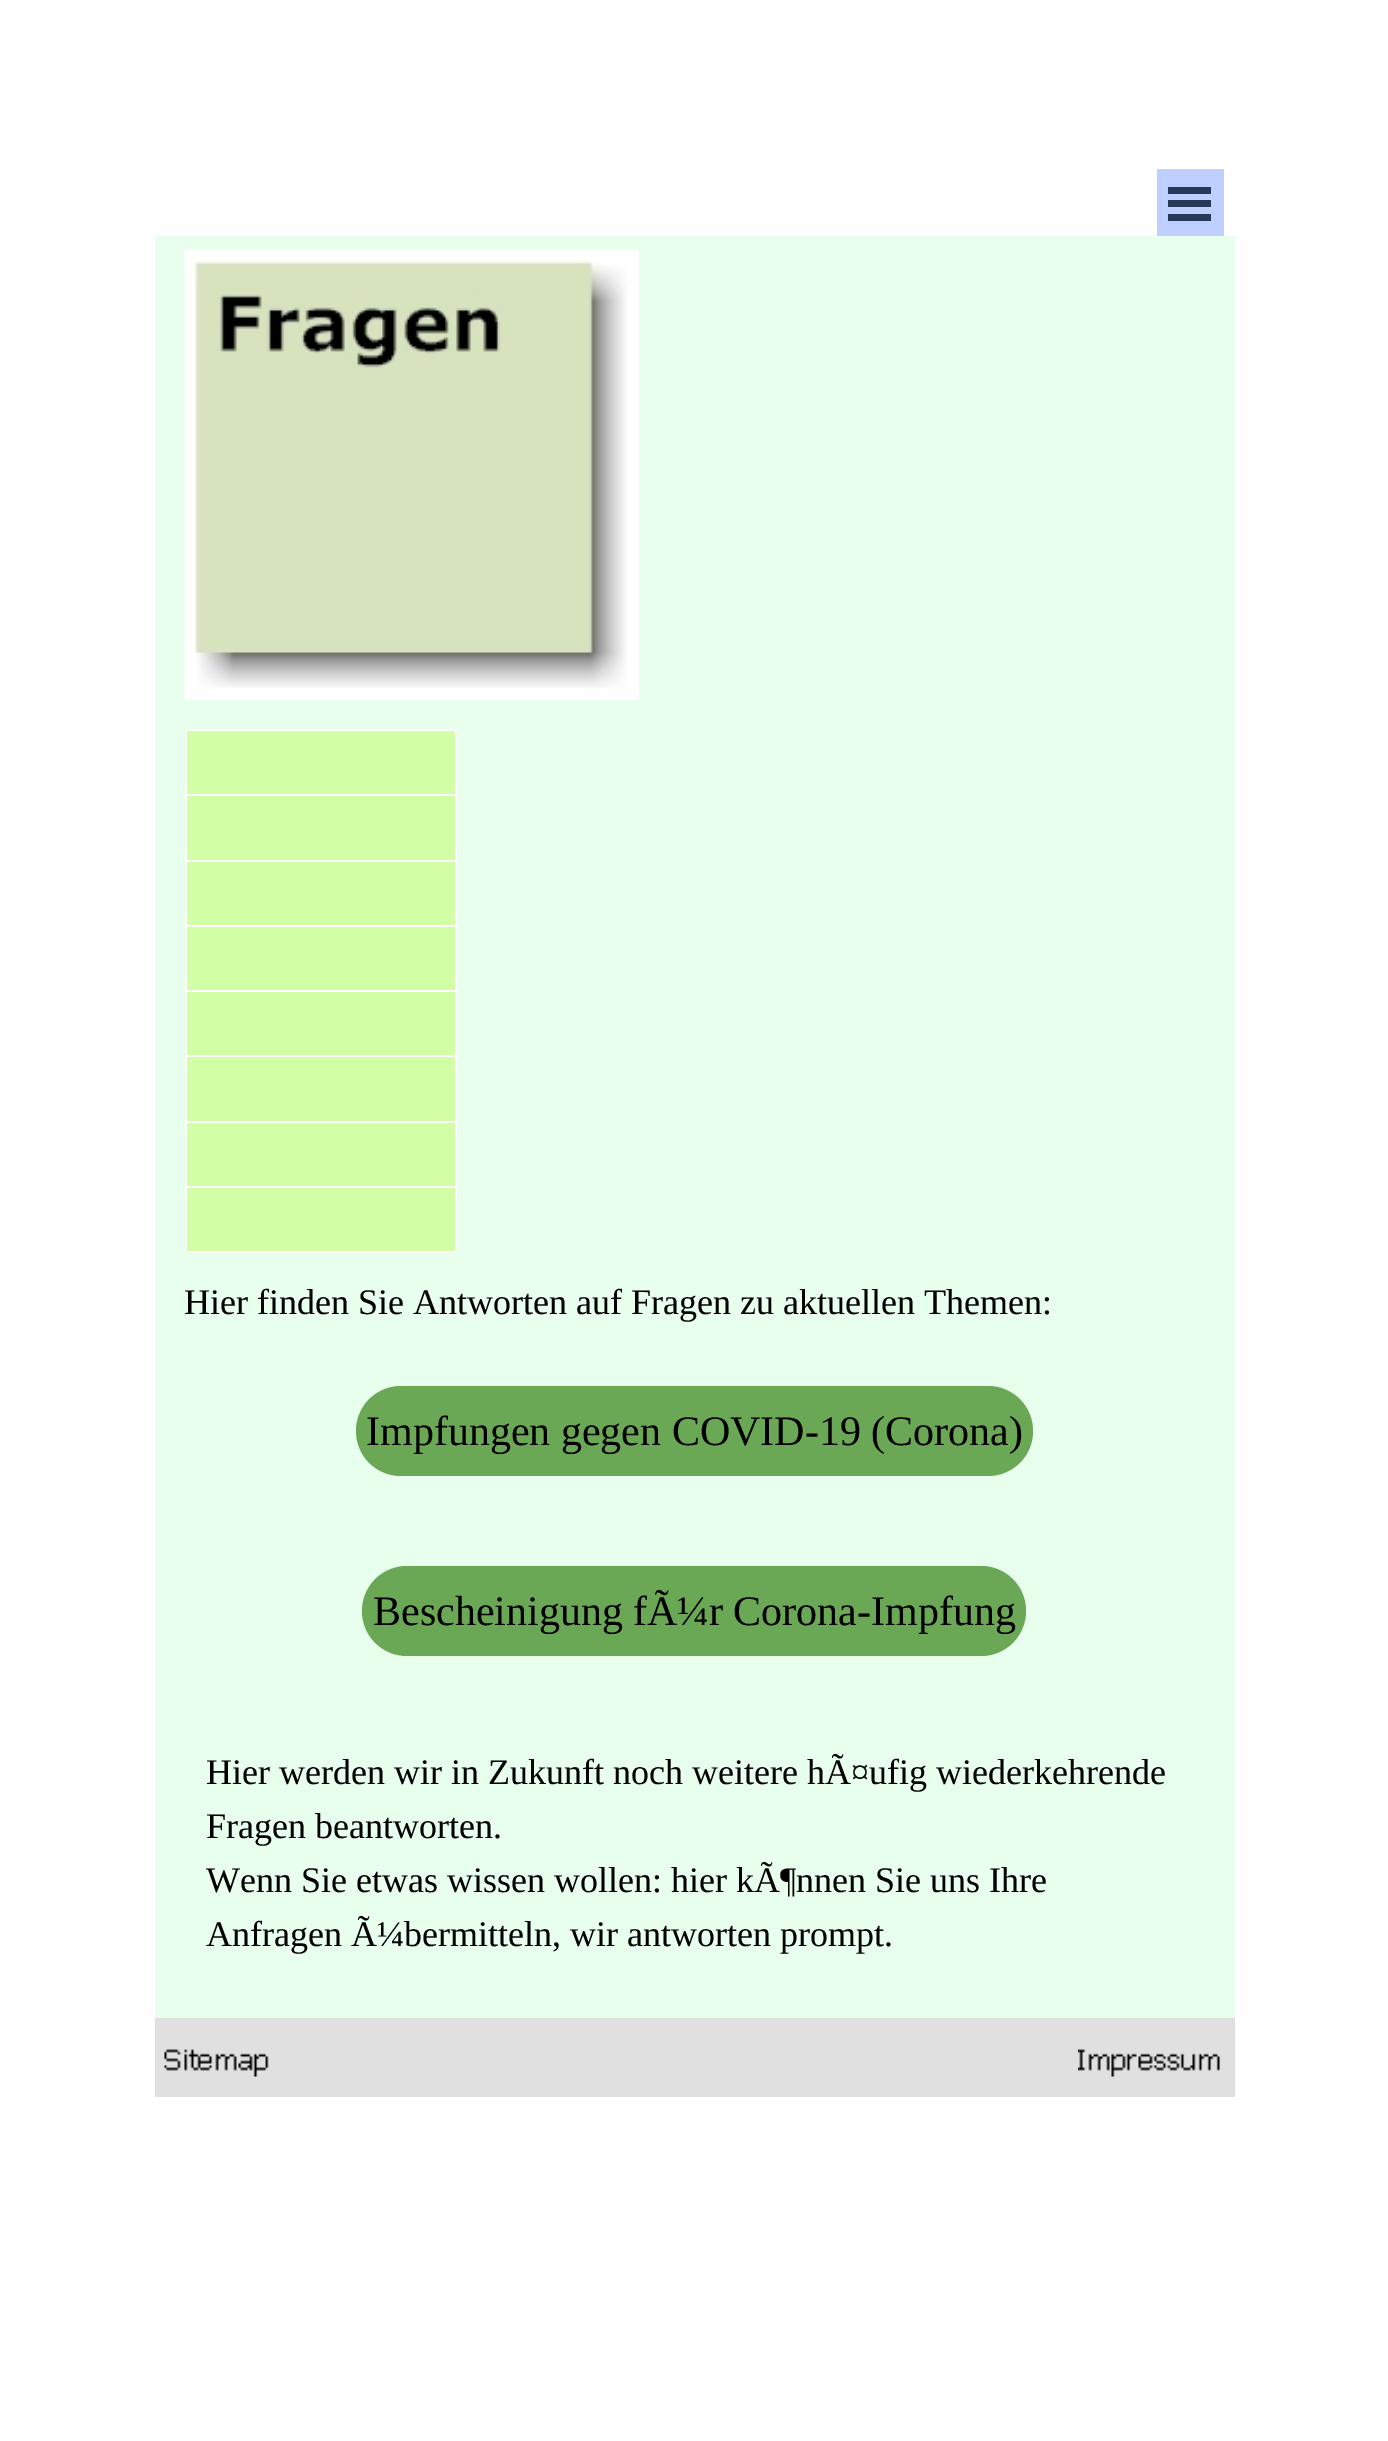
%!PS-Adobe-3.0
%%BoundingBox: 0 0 1388 2441
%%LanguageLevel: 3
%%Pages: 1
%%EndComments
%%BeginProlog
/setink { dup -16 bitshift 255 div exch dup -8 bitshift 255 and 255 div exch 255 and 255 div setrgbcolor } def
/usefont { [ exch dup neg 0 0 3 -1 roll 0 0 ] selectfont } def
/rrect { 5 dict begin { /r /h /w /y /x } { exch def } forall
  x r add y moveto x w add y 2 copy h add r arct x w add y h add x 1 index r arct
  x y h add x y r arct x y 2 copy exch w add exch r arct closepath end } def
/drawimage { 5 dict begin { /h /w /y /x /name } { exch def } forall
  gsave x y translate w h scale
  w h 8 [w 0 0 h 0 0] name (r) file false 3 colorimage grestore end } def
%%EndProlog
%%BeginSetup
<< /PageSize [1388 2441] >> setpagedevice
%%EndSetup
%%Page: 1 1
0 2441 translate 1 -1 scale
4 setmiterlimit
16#FFFFFF setink
0 0 1388 2441 rectfill
[
    [1157 169 67 67 16#BFCFFF]
    [1168 187 43 7 16#253A58]
    [1168 200 43 7 16#253A58]
    [1168 214 43 7 16#253A58]
    [155 236 1080 1782 16#E8FFED]
] { aload pop setink rectfill } forall
(img1.raw) 184 249 455 451 drawimage
[
    [187 731 268 129 16#D2FFA6]
    [185 729 272 2 16#FFFFFF]
    [185 794 272 2 16#FFFFFF]
    [185 860 272 2 16#FFFFFF]
    [185 925 272 2 16#FFFFFF]
    [185 990 272 2 16#FFFFFF]
    [187 992 268 129 16#D2FFA6]
    [185 1055 272 2 16#FFFFFF]
    [185 1121 272 2 16#FFFFFF]
    [185 1186 272 2 16#FFFFFF]
    [455 1186 2 67 16#FFFFFF]
    [455 1121 2 67 16#FFFFFF]
    [455 1055 2 68 16#FFFFFF]
    [455 990 2 68 16#FFFFFF]
    [455 925 2 67 16#FFFFFF]
    [455 860 2 67 16#FFFFFF]
    [455 794 2 68 16#FFFFFF]
    [455 729 2 68 16#FFFFFF]
    [185 1251 272 2 16#FFFFFF]
    [185 1186 2 67 16#FFFFFF]
    [185 1121 2 67 16#FFFFFF]
    [185 1055 2 68 16#FFFFFF]
    [185 990 2 68 16#FFFFFF]
    [185 925 2 67 16#FFFFFF]
    [185 860 2 67 16#FFFFFF]
    [185 794 2 68 16#FFFFFF]
    [185 729 2 68 16#FFFFFF]
    [187 862 268 63 16#D2FFA6]
    [187 927 268 63 16#D2FFA6]
    [187 1123 268 63 16#D2FFA6]
    [187 1188 268 63 16#D2FFA6]
] { aload pop setink rectfill } forall
/LiberationSerif-Regular 36 usefont
16#000000 setink
184 1314 moveto (Hier finden Sie Antworten auf Fragen zu aktuellen Themen:) show
16#6AA855 setink
356 1386 677 90 45 rrect fill
/LiberationSerif-Regular 42 usefont
16#000000 setink
366 1445 moveto (Impfungen gegen COVID-19 \(Corona\)) show
16#6AA855 setink
362 1566 664 90 45 rrect fill
16#000000 setink
373 1625 moveto (Bescheinigung fÃ¼r Corona-Impfung) show
/LiberationSerif-Regular 36 usefont
[
    [(Hier werden wir in Zukunft noch weitere hÃ¤ufig wiederkehrende) 206 1784]
    [(Fragen beantworten.) 206 1838]
    [(Wenn Sie etwas wissen wollen: hier kÃ¶nnen Sie uns Ihre) 206 1892]
    [(Anfragen Ã¼bermitteln, wir antworten prompt.) 206 1946]
] { aload pop moveto show } forall
16#E0E0E0 setink
155 2018 1080 79 rectfill
(img2.raw) 164 2049 105 28 drawimage
(img3.raw) 1077 2049 144 28 drawimage
showpage
%%EOF
